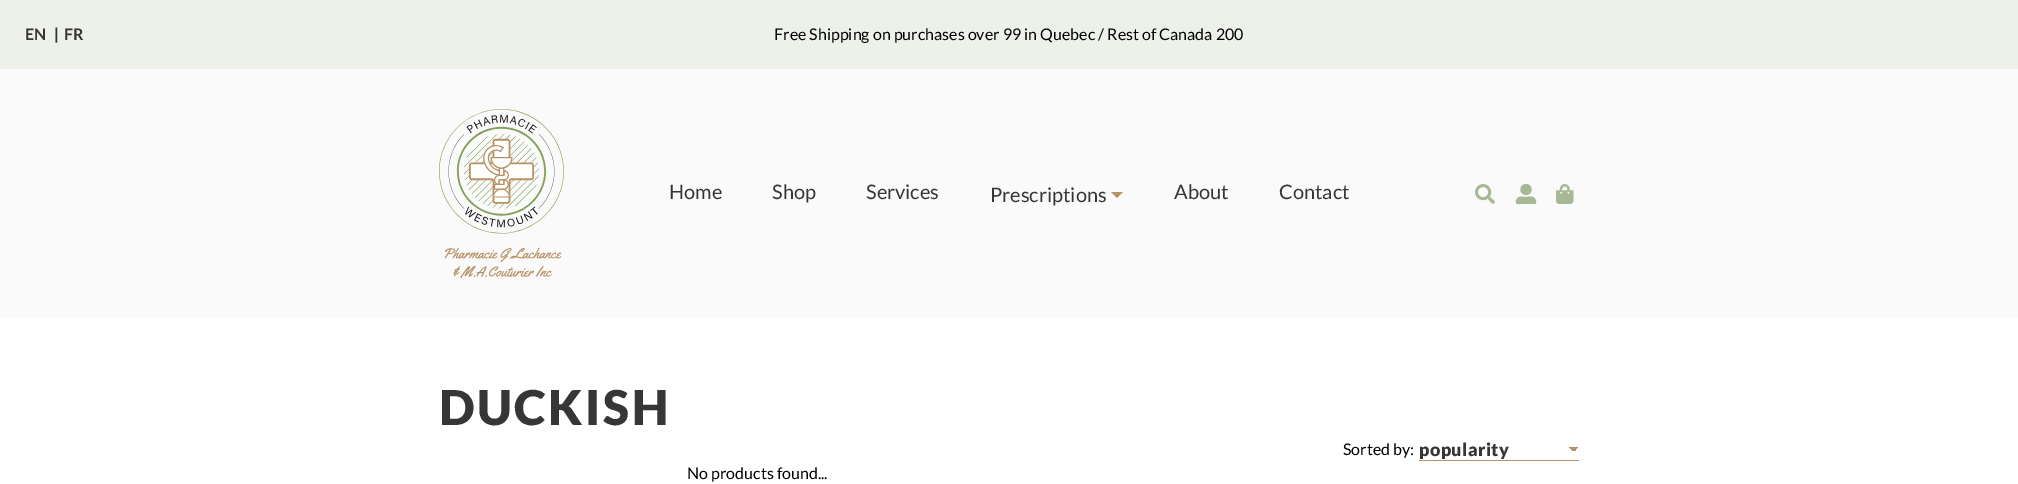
%!PS-Adobe-3.0
%%BoundingBox: 0 0 2018 484
%%LanguageLevel: 3
%%Pages: 1
%%EndComments
%%BeginProlog
/setink { dup -16 bitshift 255 div exch dup -8 bitshift 255 and 255 div exch 255 and 255 div setrgbcolor } def
/usefont { [ exch dup neg 0 0 3 -1 roll 0 0 ] selectfont } def
/drawimage { 5 dict begin { /h /w /y /x /name } { exch def } forall
  gsave x y translate w h scale
  w h 8 [w 0 0 h 0 0] name (r) file false 3 colorimage grestore end } def
%%EndProlog
%%BeginSetup
<< /PageSize [2018 484] >> setpagedevice
%%EndSetup
%%Page: 1 1
0 484 translate 1 -1 scale
4 setmiterlimit
16#FFFFFF setink
0 0 2018 484 rectfill
16#EDF1EA setink
0 0 2018 69 rectfill
/Lato-Bold 16 usefont
16#363636 setink
[
    [(EN) 25 40]
    [(|) 54 40]
    [(FR) 64 40]
] { aload pop moveto show } forall
/Lato-Regular 16 usefont
16#000000 setink
774 40 moveto (Free Shipping on purchases over 99 in Quebec / Rest of Canada 200) show
16#FAFAFA setink
0 69 2018 249 rectfill
(img1.raw) 439 109 125 169 drawimage
/Lato-Regular 20 usefont
16#363636 setink
[
    [(Home) 669 199]
    [(Shop) 772 199]
    [(Services) 866 199]
    [(Prescriptions) 990 202]
] { aload pop moveto show } forall
16#B79267 setink
1111 192 moveto 1123 192 lineto 1117 198 lineto closepath fill
16#363636 setink
1174 199 moveto (About) show
1279 199 moveto (Contact) show
(img2.raw) 1475 184 20 20 drawimage
16#A6B994 setink
1526 195 moveto 1533.5 195 1533.5 184 1526 184 curveto 1518.5 184 1518.5 195 1526 195 curveto closepath 1531 196.5 moveto 1529 196.5 lineto 1526 197 lineto 1523.5 197 1521.5 196 1519 197 curveto 1517.5 197.5 1516.5 199 1516 200.5 curveto 1515.5 204.5 1517.5 204 1520.5 204 curveto 1534.5 204 lineto 1538 203.5 1535.5 196.5 1531 196.5 curveto closepath fill
(img3.raw) 1556 184 18 20 drawimage
/Lato-Black 48 usefont
16#363636 setink
439 425 moveto 2.5 0 (DUCKISH) ashow
/Lato-Regular 16 usefont
16#000000 setink
1343 455 moveto (Sorted by:) show
gsave 1574 447 moveto 1579 447 lineto 1579 451 lineto 1574 451 lineto closepath clip newpath
<< /ShadingType 2 /ColorSpace /DeviceRGB /Coords [1574 447 1579 452] /Extend [true true] /Function << /FunctionType 3 /Domain [0 1] /Functions [<< /FunctionType 2 /Domain [0 1] /C0 [0.718 0.573 0.404] /C1 [0.718 0.573 0.404] /N 1 >> << /FunctionType 2 /Domain [0 1] /C0 [1 1 1] /C1 [1 1 1] /N 1 >>] /Bounds [0.5] /Encode [0 1 0 1] >> >> shfill grestore
gsave 1569 447 moveto 1574 447 lineto 1574 451 lineto 1569 451 lineto closepath clip newpath
<< /ShadingType 2 /ColorSpace /DeviceRGB /Coords [1569 452 1574 447] /Extend [true true] /Function << /FunctionType 3 /Domain [0 1] /Functions [<< /FunctionType 2 /Domain [0 1] /C0 [1 1 1] /C1 [1 1 1] /N 1 >> << /FunctionType 2 /Domain [0 1] /C0 [0.718 0.573 0.404] /C1 [0.718 0.573 0.404] /N 1 >>] /Bounds [0.5] /Encode [0 1 0 1] >> >> shfill grestore
16#B79267 setink
1419 460 160 1 rectfill
/Lato-Black 18 usefont
16#363636 setink
1419 456 moveto 0.4 0 (popularity) ashow
/Lato-Regular 16 usefont
16#000000 setink
687 479 moveto (No products found...) show
showpage
%%EOF
